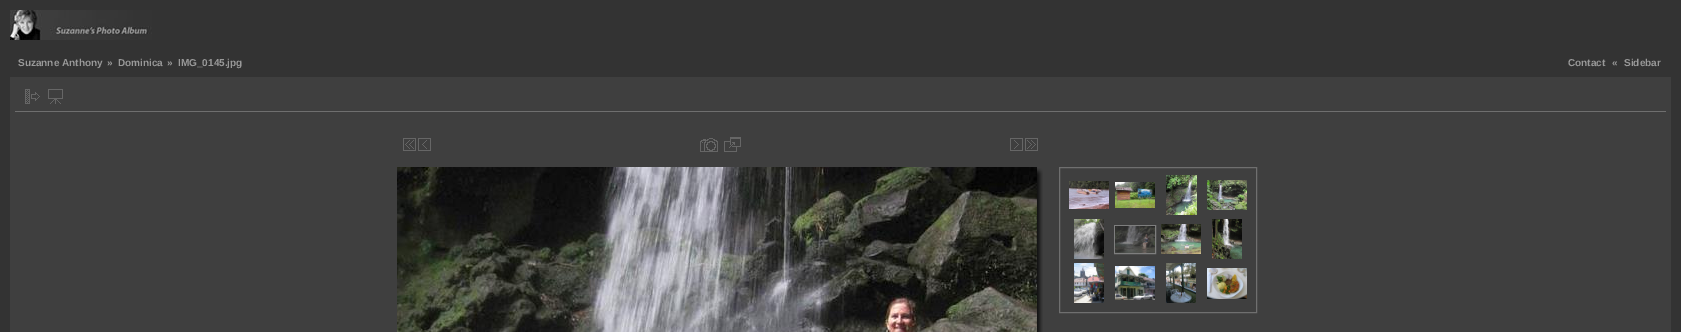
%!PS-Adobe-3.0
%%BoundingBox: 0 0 1681 332
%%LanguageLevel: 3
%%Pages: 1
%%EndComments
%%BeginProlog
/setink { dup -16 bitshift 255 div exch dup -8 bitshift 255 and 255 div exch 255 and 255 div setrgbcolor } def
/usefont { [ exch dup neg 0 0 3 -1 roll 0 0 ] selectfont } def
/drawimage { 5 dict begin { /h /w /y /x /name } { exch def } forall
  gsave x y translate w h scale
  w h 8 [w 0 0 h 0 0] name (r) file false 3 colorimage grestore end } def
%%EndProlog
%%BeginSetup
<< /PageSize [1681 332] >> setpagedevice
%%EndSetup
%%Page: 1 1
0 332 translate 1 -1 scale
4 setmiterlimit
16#333333 setink
0 0 1681 332 rectfill
(img1.raw) 10 10 142 30 drawimage
/LiberationSans-Bold 10 usefont
16#999999 setink
[
    [(Suzanne Anthony) 18 66]
    [(») 107 66]
    [(Dominica) 118 66]
    [(») 167 66]
    [(IMG_0145.jpg) 178 66]
    [(Contact) 1568 66]
    [(«) 1612 66]
    [(Sidebar) 1624 66]
] { aload pop moveto show } forall
16#3F3F3F setink
10 77 1661 255 rectfill
16#6F6F6F setink
15 111 1651 1 rectfill
(img2.raw) 25 89 15 15 drawimage
(img3.raw) 48 89 15 15 drawimage
(img4.raw) 403 138 13 13 drawimage
(img5.raw) 418 138 13 13 drawimage
(img6.raw) 700 138 18 14 drawimage
(img7.raw) 724 137 17 15 drawimage
(img8.raw) 1010 138 13 13 drawimage
(img9.raw) 1025 138 13 13 drawimage
(img10.raw) 397 167 640 165 drawimage
(img11.raw) 1037 168 6 9 drawimage
(img12.raw) 1037 177 6 155 drawimage
1059.5 167.5 197 145 rectstroke
(img13.raw) 1069 181 40 28 drawimage
(img14.raw) 1115 182 40 26 drawimage
(img15.raw) 1166 175 31 40 drawimage
(img16.raw) 1207 180 40 30 drawimage
(img17.raw) 1074 219 30 40 drawimage
16#7E7E7E setink
1114.5 225.5 41 28 rectstroke
(img18.raw) 1115 226 40 27 drawimage
(img19.raw) 1161 224 40 30 drawimage
(img20.raw) 1212 219 30 40 drawimage
(img21.raw) 1074 263 30 40 drawimage
(img22.raw) 1115 266 40 34 drawimage
(img23.raw) 1166 263 30 40 drawimage
(img24.raw) 1207 268 40 31 drawimage
showpage
%%EOF
